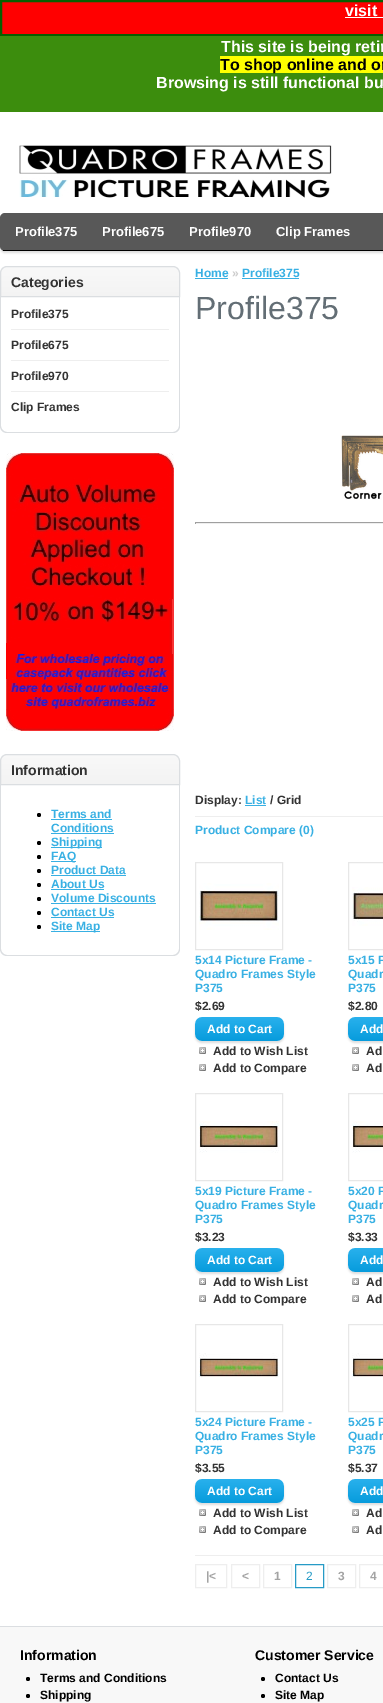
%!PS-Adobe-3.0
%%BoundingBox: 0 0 383 1703
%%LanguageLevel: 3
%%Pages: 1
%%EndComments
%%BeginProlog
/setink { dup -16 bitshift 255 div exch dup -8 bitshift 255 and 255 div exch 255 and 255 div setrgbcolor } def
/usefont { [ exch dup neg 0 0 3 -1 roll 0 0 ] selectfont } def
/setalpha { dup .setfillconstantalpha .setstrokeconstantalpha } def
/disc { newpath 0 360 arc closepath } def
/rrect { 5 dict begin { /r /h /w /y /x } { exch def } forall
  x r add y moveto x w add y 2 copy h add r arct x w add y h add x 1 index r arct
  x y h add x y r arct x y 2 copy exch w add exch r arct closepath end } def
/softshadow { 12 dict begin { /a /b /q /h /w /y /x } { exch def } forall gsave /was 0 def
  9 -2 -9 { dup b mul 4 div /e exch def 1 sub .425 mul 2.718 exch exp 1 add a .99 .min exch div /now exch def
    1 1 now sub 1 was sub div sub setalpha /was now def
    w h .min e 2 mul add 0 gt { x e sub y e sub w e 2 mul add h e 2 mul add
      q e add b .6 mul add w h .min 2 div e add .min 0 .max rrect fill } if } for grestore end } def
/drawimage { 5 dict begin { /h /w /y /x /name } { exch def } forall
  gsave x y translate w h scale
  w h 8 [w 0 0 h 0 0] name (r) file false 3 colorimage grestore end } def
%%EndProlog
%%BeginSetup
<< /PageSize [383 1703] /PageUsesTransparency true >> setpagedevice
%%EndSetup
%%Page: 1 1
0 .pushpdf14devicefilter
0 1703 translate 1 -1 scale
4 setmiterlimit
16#FFFFFF setink
0 0 383 1703 rectfill
16#FF0000 setink
1 1 moveto 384 1 lineto 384 35 lineto 1 35 lineto closepath gsave fill grestore
16#085F00 setink
2 setlinewidth
stroke
/LiberationSans-Bold 16 usefont
16#FFFFFF setink
345 16 moveto (visit) show
345 17 38 1 rectfill
16#3C8D0D setink
0 36 383 76 rectfill
16#FFFFFF setink
221 52 moveto (This site is being retir) show
16#FFFF00 setink
220 56 163 17 rectfill
16#000000 setink
220 70 moveto (To shop online and or) show
16#FFFFFF setink
156 88 moveto (Browsing is still functional bu) show
(img1.raw) 19 145 313 53 drawimage
16#DDDDDD setink
0 215 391 38 5 1 1 softshadow
16#585858 setink
0 213 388 38 5 rrect fill
16#000000 setink
3 250 380 1 rectfill
/LiberationSans-Bold 13 usefont
16#FFFFFF setink
[
    [(Profile375) 15 236]
    [(Profile675) 102 236]
    [(Profile970) 189 236]
    [(Clip Frames) 276 236]
] { aload pop moveto show } forall
(img2.raw) 0 267 180 29 drawimage
16#DBDEE1 setink
1 setlinewidth
7 266.5 moveto 173 266.5 lineto 176.5 266.5 179.5 269.5 179.5 273 curveto 179.5 296.5 lineto 0.5 296.5 lineto 0.5 273 lineto 0.5 269.5 3.5 266.5 7 266.5 curveto closepath stroke
/LiberationSans-Bold 14 usefont
16#333333 setink
11 287 moveto (Categories) show
16#DBDEE1 setink
0 297 moveto 180 297 lineto 180 426 lineto 180 430 177 433 173 433 curveto 7 433 lineto 3 433 0 430 0 426 curveto closepath 1 297 moveto 179 297 lineto 179 426 lineto 179 429 176 432 173 432 curveto 7 432 lineto 4 432 1 429 1 426 curveto closepath eofill
/LiberationSans-Bold 12 usefont
16#333333 setink
11 318 moveto (Profile375) show
16#EEEEEE setink
11 329 158 1 rectfill
16#333333 setink
11 349 moveto (Profile675) show
16#EEEEEE setink
11 360 158 1 rectfill
16#333333 setink
11 380 moveto (Profile970) show
16#EEEEEE setink
11 391 158 1 rectfill
16#333333 setink
11 411 moveto (Clip Frames) show
(img3.raw) 6 453 168 278 drawimage
(img2.raw) 0 755 180 29 drawimage
16#DBDEE1 setink
7 754.5 moveto 173 754.5 lineto 176.5 754.5 179.5 757.5 179.5 761 curveto 179.5 784.5 lineto 0.5 784.5 lineto 0.5 761 lineto 0.5 757.5 3.5 754.5 7 754.5 curveto closepath stroke
/LiberationSans-Bold 14 usefont
16#333333 setink
11 775 moveto (Information) show
16#DBDEE1 setink
0 785 moveto 180 785 lineto 180 949 lineto 180 953 177 956 173 956 curveto 7 956 lineto 3 956 0 953 0 949 curveto closepath 1 785 moveto 179 785 lineto 179 949 lineto 179 952 176 955 173 955 curveto 7 955 lineto 4 955 1 952 1 949 curveto closepath eofill
16#000000 setink
39 815 2 disc fill
/LiberationSans-Bold 12 usefont
16#38B0E3 setink
51 818 moveto (Terms and) show
51 819 61 1 rectfill
51 832 moveto (Conditions) show
51 833 63 1 rectfill
16#000000 setink
39 843 2 disc fill
16#38B0E3 setink
51 847 51 1 rectfill
51 846 moveto (Shipping) show
16#000000 setink
39 857 2 disc fill
16#38B0E3 setink
51 861 25 1 rectfill
51 860 moveto (FAQ) show
16#000000 setink
39 871 2 disc fill
16#38B0E3 setink
51 874 moveto (Product Data) show
51 875 75 1 rectfill
16#000000 setink
39 885 2 disc fill
16#38B0E3 setink
51 888 moveto (About Us) show
51 889 53 1 rectfill
16#000000 setink
39 899 2 disc fill
16#38B0E3 setink
51 902 moveto (Volume Discounts) show
51 903 105 1 rectfill
16#000000 setink
39 913 2 disc fill
16#38B0E3 setink
51 916 moveto (Contact Us) show
51 917 63 1 rectfill
16#000000 setink
39 927 2 disc fill
16#38B0E3 setink
51 931 49 1 rectfill
51 930 moveto (Site Map) show
195 277 moveto (Home) show
195 278 33 1 rectfill
16#CCCCCC setink
232 277 moveto (») show
16#38B0E3 setink
242 277 moveto (Profile375) show
242 278 57 1 rectfill
/LiberationSans-Regular 32 usefont
16#636E75 setink
195 319 moveto (Profile375) show
(img4.raw) 340 435 43 65 drawimage
[
    [195 522 188 1 16#9F9F9F]
    [195 523 188 1 16#EEEEEE]
    [195 522 1 2 16#9F9F9F]
    [195 816 188 1 16#EEEEEE]
] { aload pop setink rectfill } forall
/LiberationSans-Bold 12 usefont
16#333333 setink
195 804 moveto (Display:) show
16#38B0E3 setink
245 804 moveto (List) show
245 805 21 1 rectfill
16#333333 setink
270 804 moveto (/ Grid) show
16#38B0E3 setink
195 834 moveto (Product Compare \(0\)) show
16#E7E7E7 setink
195.5 862.5 87 87 rectstroke
(img5.raw) 199 883 80 47 drawimage
16#38B0E3 setink
[
    [(5x14 Picture Frame -) 195 964]
    [(Quadro Frames Style) 195 978]
    [(P375) 195 992]
] { aload pop moveto show } forall
16#333333 setink
195 1010 moveto ($2.69) show
gsave
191 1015 moveto 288 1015 lineto 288 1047 lineto 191 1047 lineto closepath 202 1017 moveto 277 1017 lineto 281 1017 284 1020 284 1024 curveto 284 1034 lineto 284 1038 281 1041 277 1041 curveto 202 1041 lineto 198 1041 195 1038 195 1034 curveto 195 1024 lineto 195 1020 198 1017 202 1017 curveto closepath eoclip newpath
16#DDDDDD setink
195 1019 89 24 7 1 1 softshadow
grestore
(img6.raw) 195 1017 89 24 drawimage
16#FFFFFF setink
207 1033 moveto (Add to Cart) show
(img7.raw) 199 1047 7 7 drawimage
16#333333 setink
213 1055 moveto (Add to Wish List) show
(img7.raw) 199 1064 7 7 drawimage
213 1072 moveto (Add to Compare) show
16#E7E7E7 setink
348.5 862.5 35 87 rectstroke
(img8.raw) 352 887 31 39 drawimage
16#38B0E3 setink
[
    [(5x15 P) 348 964]
    [(Quadr) 348 978]
    [(P375) 348 992]
] { aload pop moveto show } forall
16#333333 setink
348 1010 moveto ($2.80) show
16#DDDDDD setink
348 1019 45 24 7 1 1 softshadow
(img9.raw) 348 1017 35 24 drawimage
16#FFFFFF setink
360 1033 moveto (Add) show
(img7.raw) 352 1047 7 7 drawimage
16#333333 setink
366 1055 moveto (Ad) show
(img7.raw) 352 1064 7 7 drawimage
366 1072 moveto (Ad) show
16#E7E7E7 setink
195.5 1093.5 87 87 rectstroke
(img10.raw) 199 1121 80 32 drawimage
16#38B0E3 setink
[
    [(5x19 Picture Frame -) 195 1195]
    [(Quadro Frames Style) 195 1209]
    [(P375) 195 1223]
] { aload pop moveto show } forall
16#333333 setink
195 1241 moveto ($3.23) show
gsave
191 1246 moveto 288 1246 lineto 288 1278 lineto 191 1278 lineto closepath 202 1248 moveto 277 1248 lineto 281 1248 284 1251 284 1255 curveto 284 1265 lineto 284 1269 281 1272 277 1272 curveto 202 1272 lineto 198 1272 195 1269 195 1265 curveto 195 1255 lineto 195 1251 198 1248 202 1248 curveto closepath eoclip newpath
16#DDDDDD setink
195 1250 89 24 7 1 1 softshadow
grestore
(img11.raw) 195 1248 89 24 drawimage
16#FFFFFF setink
207 1264 moveto (Add to Cart) show
(img7.raw) 199 1278 7 7 drawimage
16#333333 setink
213 1286 moveto (Add to Wish List) show
(img7.raw) 199 1295 7 7 drawimage
213 1303 moveto (Add to Compare) show
16#E7E7E7 setink
348.5 1093.5 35 87 rectstroke
(img12.raw) 352 1121 31 32 drawimage
16#38B0E3 setink
[
    [(5x20 P) 348 1195]
    [(Quadr) 348 1209]
    [(P375) 348 1223]
] { aload pop moveto show } forall
16#333333 setink
348 1241 moveto ($3.33) show
16#DDDDDD setink
348 1250 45 24 7 1 1 softshadow
(img13.raw) 348 1248 35 24 drawimage
16#FFFFFF setink
360 1264 moveto (Add) show
(img7.raw) 352 1278 7 7 drawimage
16#333333 setink
366 1286 moveto (Ad) show
(img7.raw) 352 1295 7 7 drawimage
366 1303 moveto (Ad) show
16#E7E7E7 setink
195.5 1324.5 87 87 rectstroke
(img14.raw) 199 1353 80 25 drawimage
16#38B0E3 setink
[
    [(5x24 Picture Frame -) 195 1426]
    [(Quadro Frames Style) 195 1440]
    [(P375) 195 1454]
] { aload pop moveto show } forall
16#333333 setink
195 1472 moveto ($3.55) show
gsave
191 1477 moveto 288 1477 lineto 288 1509 lineto 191 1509 lineto closepath 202 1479 moveto 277 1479 lineto 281 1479 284 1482 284 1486 curveto 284 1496 lineto 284 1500 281 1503 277 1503 curveto 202 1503 lineto 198 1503 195 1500 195 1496 curveto 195 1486 lineto 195 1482 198 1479 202 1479 curveto closepath eoclip newpath
16#DDDDDD setink
195 1481 89 24 7 1 1 softshadow
grestore
(img6.raw) 195 1479 89 24 drawimage
16#FFFFFF setink
207 1495 moveto (Add to Cart) show
(img7.raw) 199 1509 7 7 drawimage
16#333333 setink
213 1517 moveto (Add to Wish List) show
(img7.raw) 199 1526 7 7 drawimage
213 1534 moveto (Add to Compare) show
16#E7E7E7 setink
348.5 1324.5 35 87 rectstroke
(img15.raw) 352 1353 31 24 drawimage
16#38B0E3 setink
[
    [(5x25 P) 348 1426]
    [(Quadr) 348 1440]
    [(P375) 348 1454]
] { aload pop moveto show } forall
16#333333 setink
348 1472 moveto ($5.37) show
16#DDDDDD setink
348 1481 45 24 7 1 1 softshadow
(img9.raw) 348 1479 35 24 drawimage
16#FFFFFF setink
360 1495 moveto (Add) show
(img7.raw) 352 1509 7 7 drawimage
16#333333 setink
366 1517 moveto (Ad) show
(img7.raw) 352 1526 7 7 drawimage
366 1534 moveto (Ad) show
16#EEEEEE setink
195 1555 188 1 rectfill
195.5 1564.5 31 23 rectstroke
16#A3A3A3 setink
206 1580 moveto (|<) show
16#EEEEEE setink
231.5 1564.5 28 23 rectstroke
16#A3A3A3 setink
242 1580 moveto (<) show
16#EEEEEE setink
263.5 1564.5 28 23 rectstroke
16#A3A3A3 setink
274 1580 moveto (1) show
16#269BC6 setink
295.5 1564.5 28 23 rectstroke
/LiberationSans-Regular 12 usefont
306 1580 moveto (2) show
16#EEEEEE setink
327.5 1564.5 28 23 rectstroke
/LiberationSans-Bold 12 usefont
16#A3A3A3 setink
338 1580 moveto (3) show
16#EEEEEE setink
359.5 1564.5 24 23 rectstroke
16#A3A3A3 setink
370 1580 moveto (4) show
16#F8F8F8 setink
0 1627 383 76 rectfill
16#DBDEE1 setink
0 1626 383 1 rectfill
/LiberationSans-Bold 14 usefont
16#000000 setink
20 1660 moveto (Information) show
28 1679 2 disc fill
/LiberationSans-Bold 12 usefont
40 1682 moveto (Terms and Conditions) show
28 1696 2 disc fill
40 1699 moveto (Shipping) show
/LiberationSans-Bold 14 usefont
255 1660 moveto (Customer Service) show
263 1679 2 disc fill
/LiberationSans-Bold 12 usefont
275 1682 moveto (Contact Us) show
263 1696 2 disc fill
275 1699 moveto (Site Map) show
.poppdf14devicefilter showpage
%%EOF
